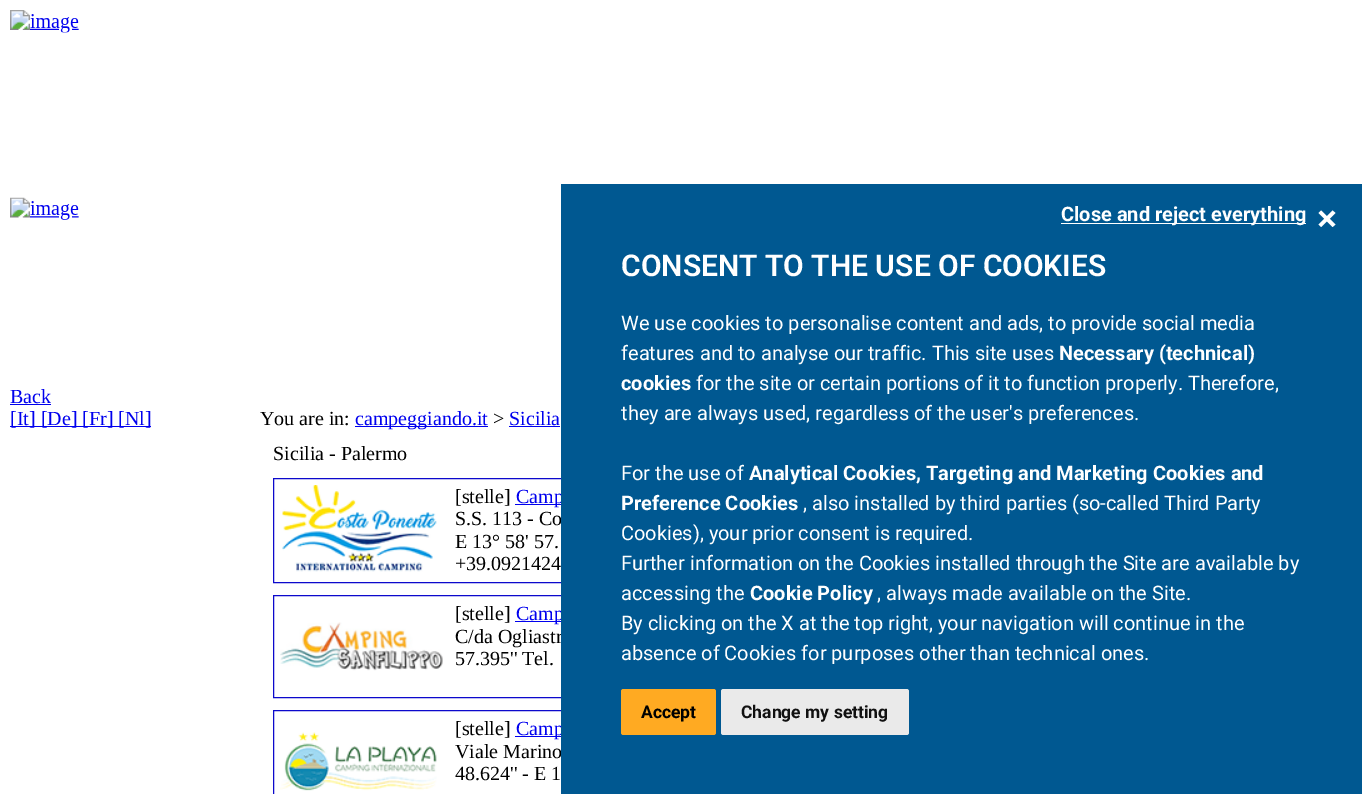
%!PS-Adobe-3.0
%%BoundingBox: 0 0 1362 794
%%LanguageLevel: 3
%%Pages: 1
%%EndComments
%%BeginProlog
/setink { dup -16 bitshift 255 div exch dup -8 bitshift 255 and 255 div exch 255 and 255 div setrgbcolor } def
/usefont { [ exch dup neg 0 0 3 -1 roll 0 0 ] selectfont } def
/rrect { 5 dict begin { /r /h /w /y /x } { exch def } forall
  x r add y moveto x w add y 2 copy h add r arct x w add y h add x 1 index r arct
  x y h add x y r arct x y 2 copy exch w add exch r arct closepath end } def
/drawimage { 5 dict begin { /h /w /y /x /name } { exch def } forall
  gsave x y translate w h scale
  w h 8 [w 0 0 h 0 0] name (r) file false 3 colorimage grestore end } def
%%EndProlog
%%BeginSetup
<< /PageSize [1362 794] >> setpagedevice
%%EndSetup
%%Page: 1 1
0 794 translate 1 -1 scale
4 setmiterlimit
16#FFFFFF setink
0 0 1362 794 rectfill
(img1.raw) 10 10 69 23 drawimage
(img2.raw) 10 197 69 23 drawimage
/LiberationSerif-Regular 20 usefont
16#0000EE setink
10 403 moveto (Back) show
10 404 41 1 rectfill
10 426 141 1 rectfill
10 425 moveto ([It] [De] [Fr] [Nl]) show
16#000000 setink
260 425 moveto (You are in:) show
16#0000EE setink
355 426 133 1 rectfill
355 425 moveto (campeggiando.it) show
16#000000 setink
493 425 moveto (>) show
16#0000EE setink
509 425 moveto (Sicilia) show
509 426 51 1 rectfill
16#000000 setink
273 460 moveto (Sicilia - Palermo) show
16#0C09CC setink
273.5 478.5 689 104 rectstroke
(img3.raw) 282 485 155 87 drawimage
16#000000 setink
455 503 moveto ([stelle]) show
16#0000EE setink
515 504 46 1 rectfill
516 503 moveto (Camp) show
16#000000 setink
[
    [(S.S. 113 - Co) 455 525]
    [(E 13° 58' 57.) 455 548]
    [(+39.0921424) 455 570]
] { aload pop moveto show } forall
16#0C09CC setink
273.5 595.5 689 102 rectstroke
(img4.raw) 280 622 163 49 drawimage
16#000000 setink
455 620 moveto ([stelle]) show
16#0000EE setink
515 621 46 1 rectfill
516 620 moveto (Camp) show
16#000000 setink
455 643 moveto (C/da Ogliastr) show
455 665 moveto (57.395'' Tel.) show
16#0C09CC setink
273.5 710.5 689 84 rectstroke
(img5.raw) 280 732 157 59 drawimage
16#000000 setink
455 735 moveto ([stelle]) show
16#0000EE setink
515 736 46 1 rectfill
516 735 moveto (Camp) show
16#000000 setink
455 758 moveto (Viale Marino) show
455 780 moveto (48.624'' - E 1) show
16#005891 setink
561 184 801 610 rectfill
16#FFFFFF setink
1061 223 245 1 rectfill
/Roboto-Bold 20 usefont
1061 221 moveto (Close and reject everything) show
1332.5 210.5 moveto 1335.5 213 lineto 1321 227 lineto 1318.5 224.5 lineto closepath fill
1318.5 213 moveto 1321 210.5 lineto 1335.5 224.5 lineto 1332.5 227 lineto closepath fill
/Roboto-SemiBold 30 usefont
621 276 moveto (CONSENT TO THE USE OF COOKIES) show
/Roboto-Regular 20 usefont
621 330 moveto (We use cookies to personalise content and ads, to provide social media) show
621 360 moveto (features and to analyse our traffic. This site uses) show
/Roboto-Bold 20 usefont
1059 360 moveto (Necessary \(technical\)) show
621 390 moveto (cookies) show
/Roboto-Regular 20 usefont
[
    [(for the site or certain portions of it to function properly. Therefore,) 696 390]
    [(they are always used, regardless of the user's preferences.) 621 420]
    [(For the use of) 621 480]
] { aload pop moveto show } forall
/Roboto-Bold 20 usefont
749 480 moveto (Analytical Cookies, Targeting and Marketing Cookies and) show
621 510 moveto (Preference Cookies) show
/Roboto-Regular 20 usefont
[
    [(, also installed by third parties \(so-called Third Party) 803 510]
    [(Cookies\), your prior consent is required.) 621 540]
    [(Further information on the Cookies installed through the Site are available by) 621 570]
    [(accessing the) 621 600]
] { aload pop moveto show } forall
/Roboto-Bold 20 usefont
750 600 moveto (Cookie Policy) show
/Roboto-Regular 20 usefont
[
    [(, always made available on the Site.) 877 600]
    [(By clicking on the X at the top right, your navigation will continue in the) 621 630]
    [(absence of Cookies for purposes other than technical ones.) 621 660]
] { aload pop moveto show } forall
16#FFAA22 setink
621 689 95 46 2.5 rrect fill
/Roboto-Bold 17.5 usefont
16#000000 setink
641 718 moveto (Accept) show
16#EAEAEA setink
721 689 188 46 2.5 rrect fill
16#111111 setink
741 718 moveto (Change my setting) show
showpage
%%EOF
